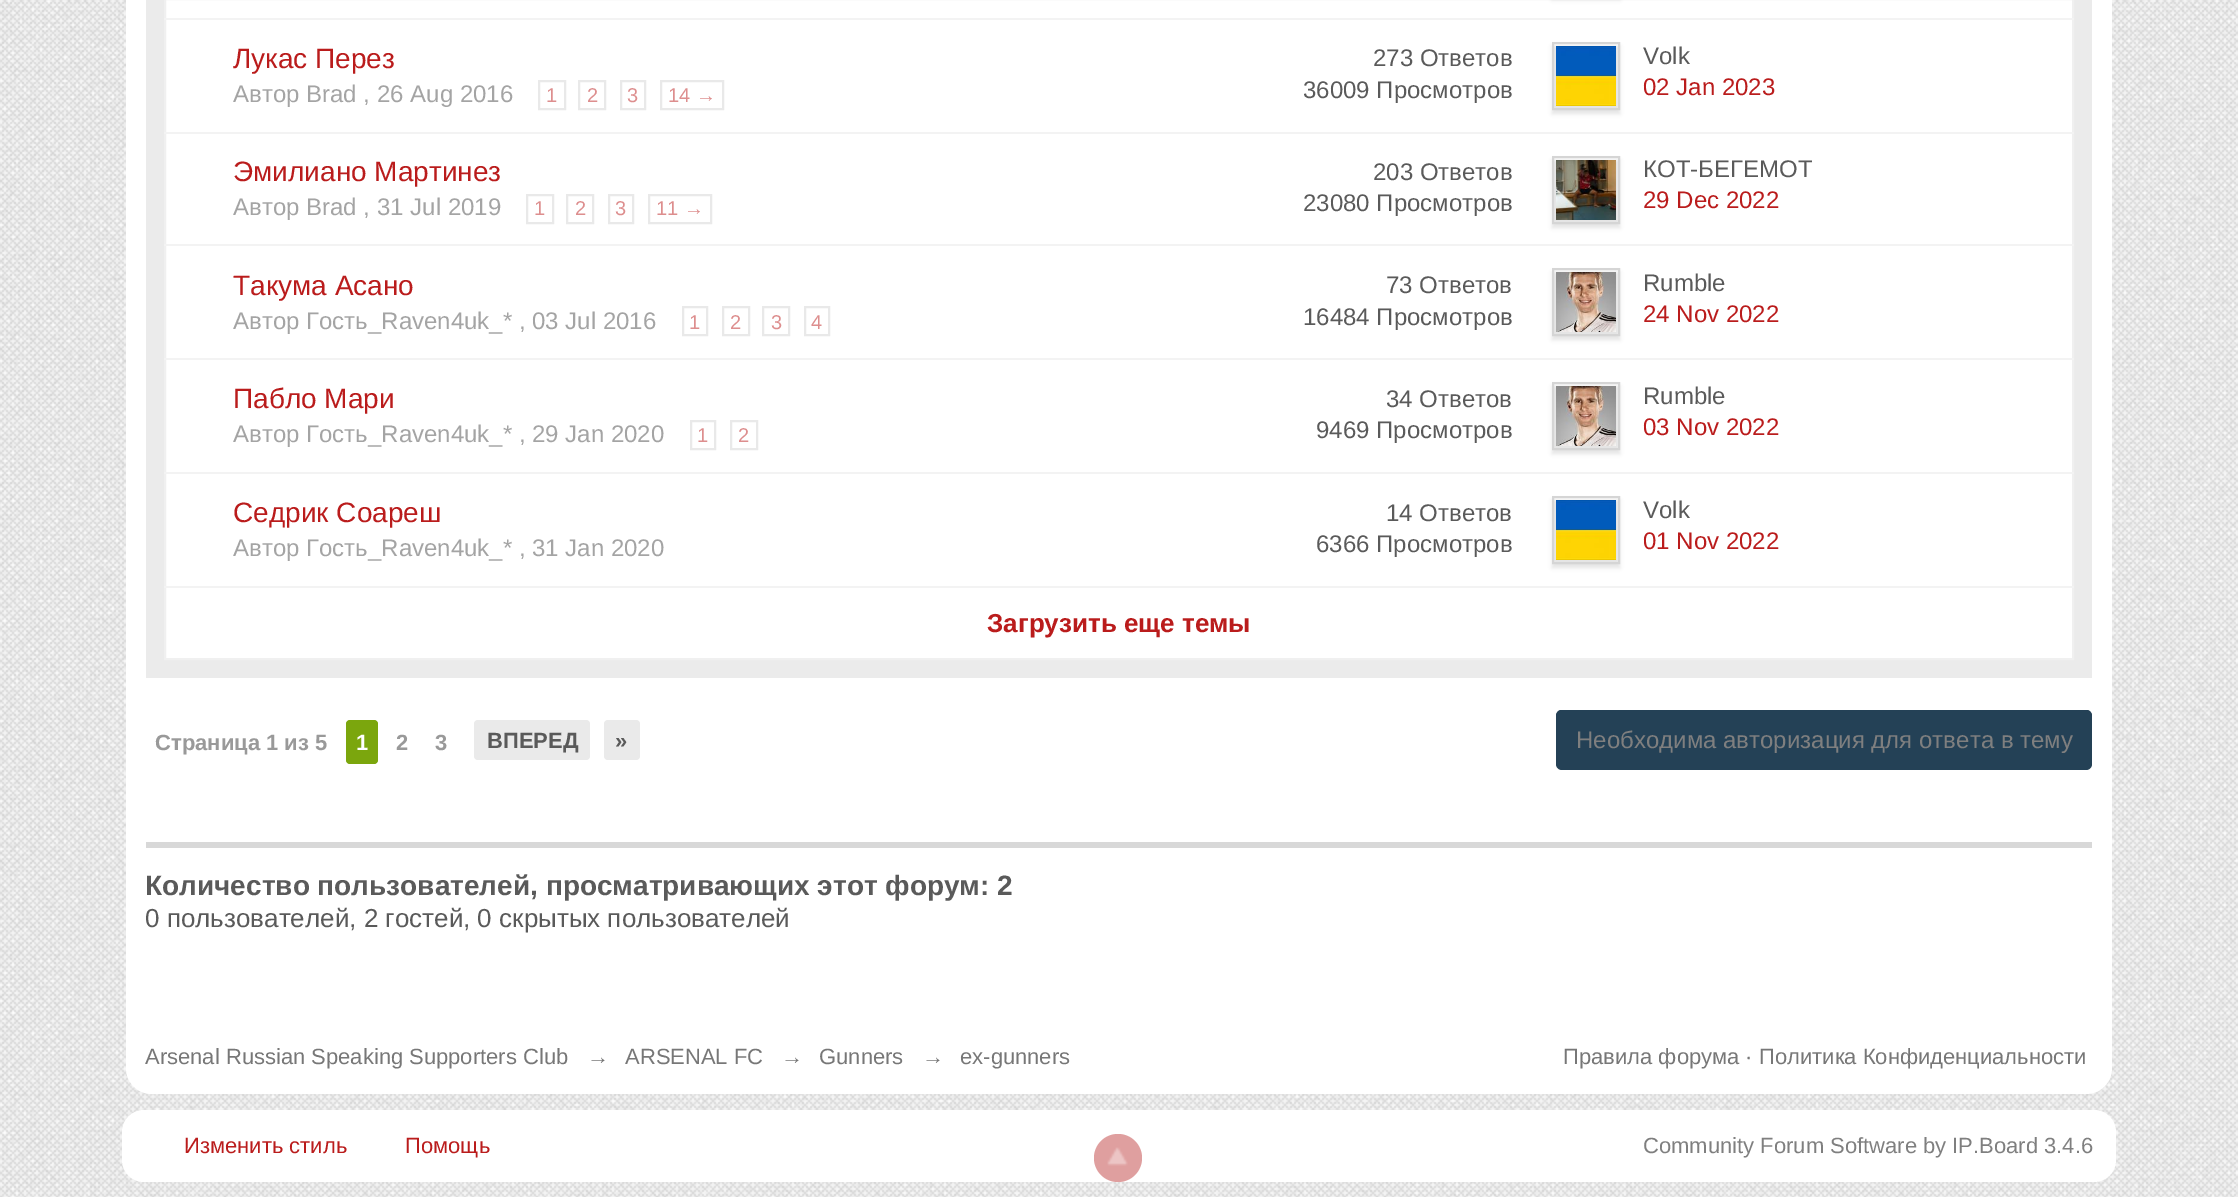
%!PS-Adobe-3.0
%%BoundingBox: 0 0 2238 1197
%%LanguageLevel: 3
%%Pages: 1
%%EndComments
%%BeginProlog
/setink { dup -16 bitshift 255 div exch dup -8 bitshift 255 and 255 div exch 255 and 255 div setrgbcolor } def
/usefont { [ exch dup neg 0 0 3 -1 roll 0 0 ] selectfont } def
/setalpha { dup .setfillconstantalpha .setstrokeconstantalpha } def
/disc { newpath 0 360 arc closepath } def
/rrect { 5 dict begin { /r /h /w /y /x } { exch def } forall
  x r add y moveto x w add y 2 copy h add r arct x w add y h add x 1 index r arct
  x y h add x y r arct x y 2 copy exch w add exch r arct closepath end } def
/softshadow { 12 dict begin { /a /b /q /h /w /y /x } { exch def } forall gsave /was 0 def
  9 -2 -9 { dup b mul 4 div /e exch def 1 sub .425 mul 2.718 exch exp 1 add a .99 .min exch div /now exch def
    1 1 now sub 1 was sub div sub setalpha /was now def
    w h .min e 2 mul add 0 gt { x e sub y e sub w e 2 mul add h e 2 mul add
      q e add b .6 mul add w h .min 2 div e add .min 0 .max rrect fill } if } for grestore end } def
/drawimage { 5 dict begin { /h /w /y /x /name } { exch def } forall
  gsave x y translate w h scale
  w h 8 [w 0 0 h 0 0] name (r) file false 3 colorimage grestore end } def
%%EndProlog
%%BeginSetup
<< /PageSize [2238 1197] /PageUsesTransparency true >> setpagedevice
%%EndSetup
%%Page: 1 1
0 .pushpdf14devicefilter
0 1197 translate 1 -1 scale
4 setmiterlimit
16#FFFFFF setink
0 0 2238 1197 rectfill
(img1.raw) 0 1182 2238 15 drawimage
(img2.raw) 0 0 2238 1182 drawimage
126 -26 moveto 2112 -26 lineto 2112 1068 lineto 2112 1082.5 2100.5 1094 2086 1094 curveto 152 1094 lineto 137.5 1094 126 1082.5 126 1068 curveto closepath fill
16#EBEBEB setink
146 0 1946 678 rectfill
16#FFFFFF setink
165 -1 moveto 2073 -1 lineto 2073 659 lineto 165 659 lineto closepath gsave fill grestore
16#F0F0F0 setink
2 setlinewidth
stroke
16#F3F3F3 setink
164 18 1910 2 rectfill
16#000000 setink
1552 -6 68 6 0 2 0.1 softshadow
/LiberationSans-Regular 28 usefont
16#BA1C1C setink
233 68 moveto (Лукас Перез) show
/LiberationSans-Regular 24 usefont
16#A4A4A4 setink
233 102 moveto (Автор Brad , 26 Aug 2016) show
16#E9E9E9 setink
539 81 26 28 rectstroke
/LiberationSans-Regular 20 usefont
16#DD8E8E setink
546 102 moveto (1) show
16#E9E9E9 setink
579 81 26 28 rectstroke
16#DD8E8E setink
587 102 moveto (2) show
16#E9E9E9 setink
621 81 24 28 rectstroke
16#DD8E8E setink
627 102 moveto (3) show
16#E9E9E9 setink
661 81 62 28 rectstroke
16#DD8E8E setink
668 102 moveto (14 →) show
/LiberationSans-Regular 24 usefont
16#5A5A5A setink
1373 66 moveto (273 Ответов) show
1303 98 moveto (36009 Просмотров) show
16#F3F3F3 setink
164 132 1910 2 rectfill
16#000000 setink
1552 46 68 68 0 2 0.1 softshadow
16#D5D5D5 setink
1553 43 66 66 rectstroke
(img3.raw) 1556 46 60 60 drawimage
16#5A5A5A setink
1643 64 moveto (Volk) show
16#BA1C1C setink
1643 95 moveto (02 Jan 2023) show
/LiberationSans-Regular 28 usefont
233 181 moveto (Эмилиано Мартинез) show
/LiberationSans-Regular 24 usefont
16#A4A4A4 setink
233 215 moveto (Автор Brad , 31 Jul 2019) show
16#E9E9E9 setink
527 195 26 28 rectstroke
/LiberationSans-Regular 20 usefont
16#DD8E8E setink
534 215 moveto (1) show
16#E9E9E9 setink
567 195 26 28 rectstroke
16#DD8E8E setink
575 215 moveto (2) show
16#E9E9E9 setink
609 195 24 28 rectstroke
16#DD8E8E setink
615 215 moveto (3) show
16#E9E9E9 setink
649 195 62 28 rectstroke
16#DD8E8E setink
656 215 moveto (11 →) show
/LiberationSans-Regular 24 usefont
16#5A5A5A setink
1373 180 moveto (203 Ответов) show
1303 211 moveto (23080 Просмотров) show
16#F3F3F3 setink
164 244 1910 2 rectfill
16#000000 setink
1552 160 68 68 0 2 0.1 softshadow
16#D5D5D5 setink
1553 157 66 66 rectstroke
(img4.raw) 1556 160 60 60 drawimage
16#5A5A5A setink
1643 177 moveto (КОТ-БЕГЕМОТ) show
16#BA1C1C setink
1643 208 moveto (29 Dec 2022) show
/LiberationSans-Regular 28 usefont
233 295 moveto (Такума Асано) show
/LiberationSans-Regular 24 usefont
16#A4A4A4 setink
233 329 moveto (Автор Гость_Raven4uk_* , 03 Jul 2016) show
16#E9E9E9 setink
683 307 24 28 rectstroke
/LiberationSans-Regular 20 usefont
16#DD8E8E setink
689 329 moveto (1) show
16#E9E9E9 setink
723 307 26 28 rectstroke
16#DD8E8E setink
730 329 moveto (2) show
16#E9E9E9 setink
763 307 26 28 rectstroke
16#DD8E8E setink
771 329 moveto (3) show
16#E9E9E9 setink
805 307 24 28 rectstroke
16#DD8E8E setink
811 329 moveto (4) show
/LiberationSans-Regular 24 usefont
16#5A5A5A setink
1386 293 moveto (73 Ответов) show
1303 325 moveto (16484 Просмотров) show
16#F3F3F3 setink
164 358 1910 2 rectfill
16#000000 setink
1552 272 68 68 0 2 0.1 softshadow
16#D5D5D5 setink
1553 269 66 66 rectstroke
(img5.raw) 1556 272 60 60 drawimage
16#5A5A5A setink
1643 291 moveto (Rumble) show
16#BA1C1C setink
1643 322 moveto (24 Nov 2022) show
/LiberationSans-Regular 28 usefont
233 408 moveto (Пабло Мари) show
/LiberationSans-Regular 24 usefont
16#A4A4A4 setink
233 442 moveto (Автор Гость_Raven4uk_* , 29 Jan 2020) show
16#E9E9E9 setink
691 421 24 28 rectstroke
/LiberationSans-Regular 20 usefont
16#DD8E8E setink
697 442 moveto (1) show
16#E9E9E9 setink
731 421 26 28 rectstroke
16#DD8E8E setink
738 442 moveto (2) show
/LiberationSans-Regular 24 usefont
16#5A5A5A setink
1386 407 moveto (34 Ответов) show
1316 438 moveto (9469 Просмотров) show
16#F3F3F3 setink
164 472 1910 2 rectfill
16#000000 setink
1552 386 68 68 0 2 0.1 softshadow
16#D5D5D5 setink
1553 383 66 66 rectstroke
(img6.raw) 1556 386 60 60 drawimage
16#5A5A5A setink
1643 404 moveto (Rumble) show
16#BA1C1C setink
1643 435 moveto (03 Nov 2022) show
/LiberationSans-Regular 28 usefont
233 522 moveto (Седрик Соареш) show
/LiberationSans-Regular 24 usefont
16#A4A4A4 setink
233 556 moveto (Автор Гость_Raven4uk_* , 31 Jan 2020) show
16#5A5A5A setink
1386 521 moveto (14 Ответов) show
1316 552 moveto (6366 Просмотров) show
16#F3F3F3 setink
164 586 1910 2 rectfill
16#000000 setink
1552 500 68 68 0 2 0.1 softshadow
16#D5D5D5 setink
1553 497 66 66 rectstroke
(img3.raw) 1556 500 60 60 drawimage
16#5A5A5A setink
1643 518 moveto (Volk) show
16#BA1C1C setink
1643 549 moveto (01 Nov 2022) show
/LiberationSans-Bold 26 usefont
987 632 moveto (Загрузить еще темы) show
/LiberationSans-Bold 22 usefont
16#999999 setink
155 750 moveto (Страница 1 из 5) show
16#7BA60D setink
346 720 32 44 4 rrect fill
16#FFFFFF setink
356 750 moveto (1) show
16#999999 setink
396 750 moveto (2) show
435 750 moveto (3) show
16#EAEAEA setink
474 720 116 40 4 rrect fill
16#5A5A5A setink
487 748 moveto (ВПЕРЕД) show
16#EAEAEA setink
604 720 36 40 4 rrect fill
16#5A5A5A setink
615 748 moveto (») show
16#244156 setink
1556 710 536 60 6 rrect fill
1562 712 moveto 2086 712 lineto 2089 712 2092 715 2092 718 curveto 2092 714 2091 710 2086 710 curveto 1562 710 lineto 1557 710 1556 714 1556 718 curveto 1556 715 1559 712 1562 712 curveto closepath fill
/LiberationSans-Regular 24 usefont
16#7F7F7F setink
1576 748 moveto (Необходима авторизация для ответа в тему) show
16#D8D8D8 setink
146 842 1946 6 rectfill
/LiberationSans-Bold 28 usefont
16#5A5A5A setink
145 895 moveto (Количество пользователей, просматривающих этот форум: 2) show
/LiberationSans-Regular 26 usefont
145 927 moveto (0 пользователей, 2 гостей, 0 скрытых пользователей) show
/LiberationSans-Regular 22 usefont
16#777777 setink
[
    [(Arsenal Russian Speaking Supporters Club) 145 1064]
    [(→) 587 1064]
    [(ARSENAL FC) 625 1064]
    [(→) 781 1064]
    [(Gunners) 819 1064]
    [(→) 922 1064]
    [(ex-gunners) 960 1064]
    [(Правила форума ·) 1563 1064]
    [(Политика Конфиденциальности) 1759 1064]
] { aload pop moveto show } forall
16#FFFFFF setink
122 1110 1994 72 22 rrect fill
16#BA1C1C setink
184 1153 moveto (Изменить стиль) show
405 1153 moveto (Помощь) show
16#DF9F9F setink
1118 1158 24 disc fill
(img7.raw) 1107 1147 21 19 drawimage
16#7F7F7F setink
1643 1153 moveto (Community Forum Software by IP.Board 3.4.6) show
.poppdf14devicefilter showpage
%%EOF
